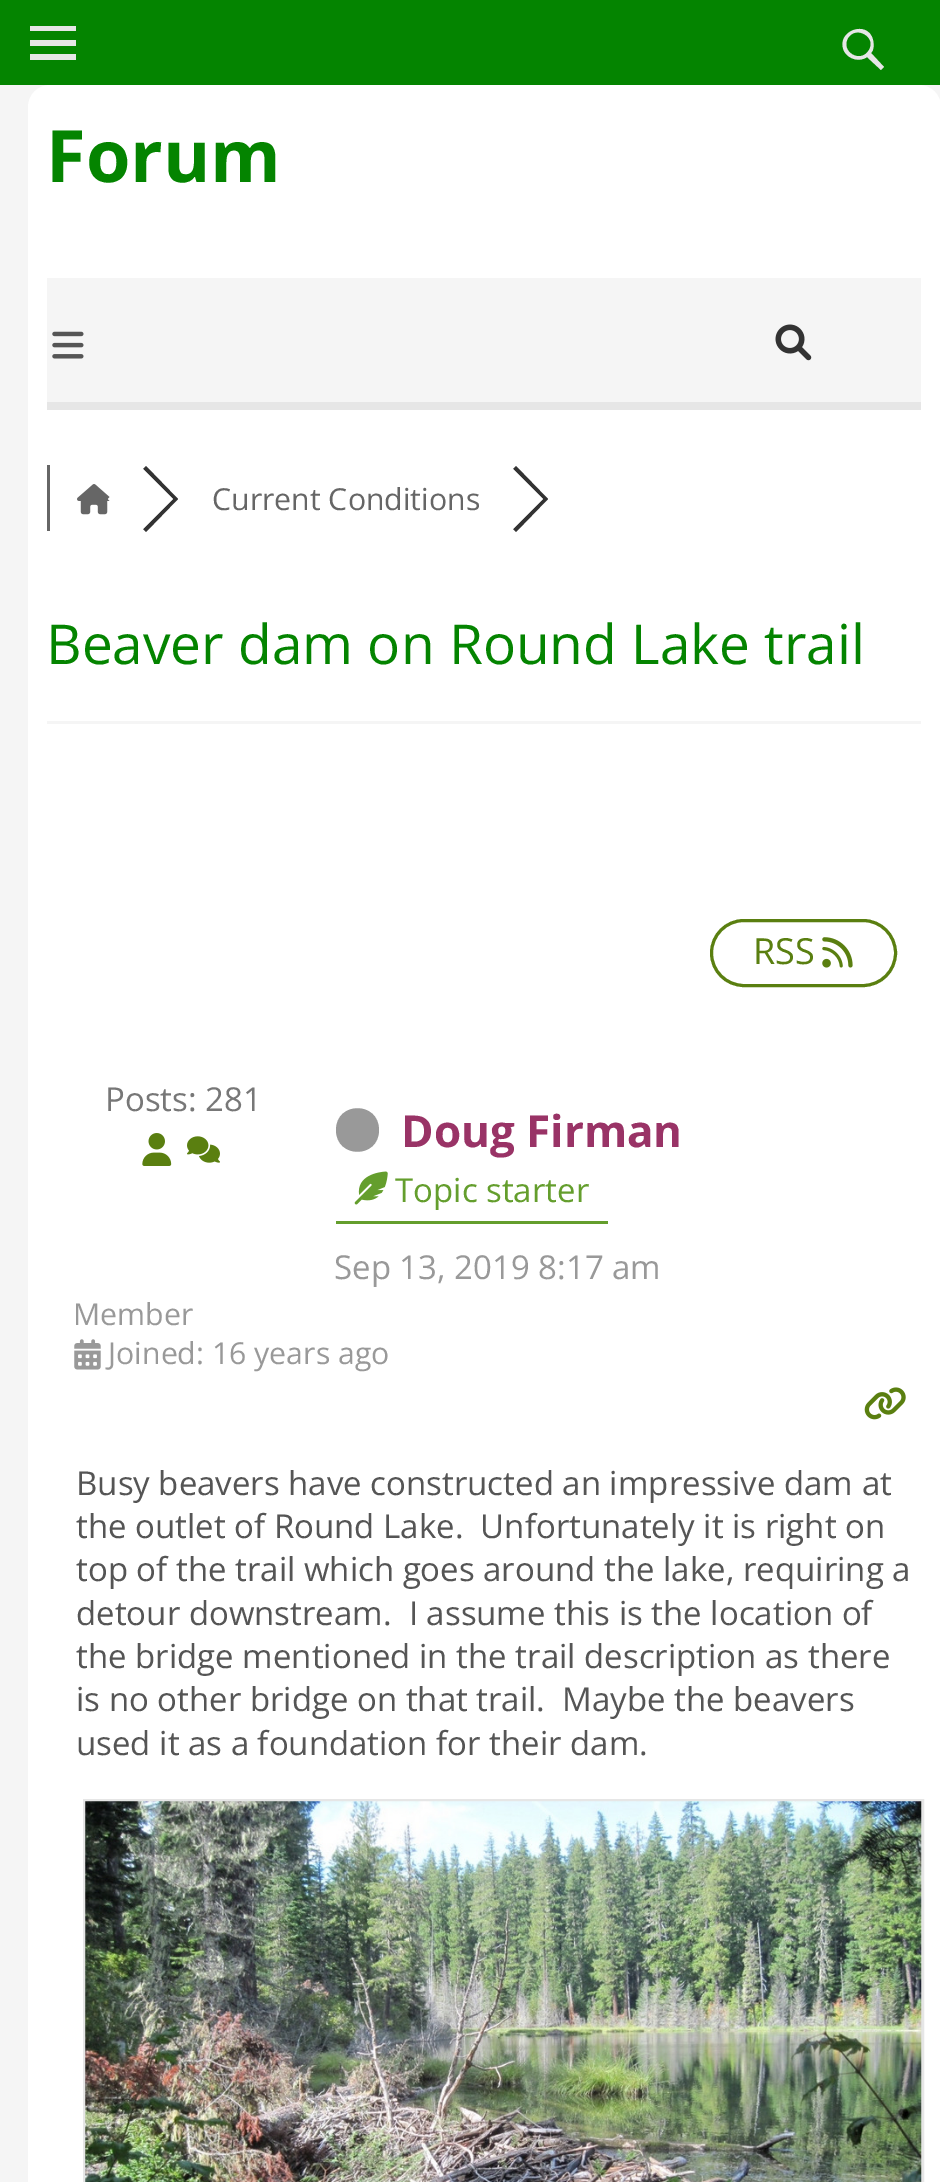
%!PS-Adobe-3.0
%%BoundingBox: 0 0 940 2182
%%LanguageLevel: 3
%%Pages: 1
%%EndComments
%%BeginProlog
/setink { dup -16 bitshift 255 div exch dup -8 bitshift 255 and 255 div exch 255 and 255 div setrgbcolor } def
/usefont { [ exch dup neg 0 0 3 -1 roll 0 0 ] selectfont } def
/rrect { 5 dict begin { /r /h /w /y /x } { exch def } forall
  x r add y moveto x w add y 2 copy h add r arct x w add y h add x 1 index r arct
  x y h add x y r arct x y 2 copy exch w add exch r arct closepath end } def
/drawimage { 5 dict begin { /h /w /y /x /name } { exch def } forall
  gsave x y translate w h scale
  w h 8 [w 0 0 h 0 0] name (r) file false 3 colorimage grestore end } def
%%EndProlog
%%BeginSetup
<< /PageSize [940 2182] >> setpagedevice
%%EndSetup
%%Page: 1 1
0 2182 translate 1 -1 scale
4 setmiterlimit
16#F5F5F5 setink
0 0 940 2182 rectfill
16#048400 setink
0 0 940 85 rectfill
16#E6E6E6 setink
30 60 moveto 30 54 lineto 76 54 lineto 76 60 lineto closepath 30 26 moveto 76 26 lineto 76 31 lineto 30 31 lineto closepath 30 46 moveto 30 40 lineto 76 40 lineto 76 46 lineto closepath fill
884 67 moveto 881 70 lineto 867 57 lineto 860 62 849 60 844 51 curveto 835 31 868 19 873 40 curveto 874 45 874 50 871 53 curveto closepath 848 38 moveto 840 52 861 64 869 50 curveto 877 37 856 25 848 38 curveto closepath fill
16#FFFFFF setink
28 85 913 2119 22 rrect fill
/OpenSans-Bold 72 usefont
16#048400 setink
46 182 moveto (Forum) show
16#F5F5F5 setink
47 278 874 124 rectfill
16#E6E6E6 setink
47 402 874 8 rectfill
(img1.raw) 52 331 32 28 drawimage
(img2.raw) 775 324 37 37 drawimage
16#666666 setink
47 465 3 66 rectfill
(img3.raw) 77 484 33 31 drawimage
16#333333 setink
146 466 moveto 143 469 lineto 173 499 lineto 143 529 lineto 146 532 lineto 178 499 lineto closepath fill
16#FFFFFF setink
140 466 moveto 173 499 lineto 140 532 lineto 108 499 lineto closepath fill
/OpenSans-Regular 30.25 usefont
16#666666 setink
212 510 moveto (Current Conditions) show
16#333333 setink
516 466 moveto 513 469 lineto 543 499 lineto 513 529 lineto 516 532 lineto 548 499 lineto closepath fill
16#FFFFFF setink
510 466 moveto 543 499 lineto 510 532 lineto 477 499 lineto closepath fill
/OpenSans-Regular 55 usefont
16#048400 setink
46 664 moveto (Beaver dam on Round Lake trail) show
16#F5F5F5 setink
47 721 874 3 rectfill
16#5A7F10 setink
3 setlinewidth
711.5 920.5 184 65 32.5 rrect stroke
/OpenSans-Regular 36 usefont
753 964 moveto (RSS) show
(img4.raw) 822 937 31 31 drawimage
/OpenSans-Regular 33 usefont
16#777777 setink
105 1111 moveto (Posts: 281) show
(img5.raw) 142 1133 30 33 drawimage
(img6.raw) 187 1136 33 27 drawimage
16#999999 setink
379 1130 moveto 379 1159 336 1159 336 1130 curveto 336 1101 379 1101 379 1130 curveto closepath fill
/OpenSans-Bold 44 usefont
16#993366 setink
401 1147 moveto (Doug Firman) show
16#649E2D setink
336 1221 272 3 rectfill
(img7.raw) 354 1171 34 34 drawimage
/OpenSans-Regular 33 usefont
395 1202 moveto (Topic starter) show
16#999999 setink
334 1279 moveto (Sep 13, 2019 8:17 am) show
/OpenSans-Regular 30.25 usefont
73 1325 moveto (Member) show
(img8.raw) 74 1339 27 31 drawimage
108 1364 moveto (Joined: 16 years ago) show
(img9.raw) 864 1387 42 33 drawimage
/OpenSans-Regular 33 usefont
16#555555 setink
[
    [(Busy beavers have constructed an impressive dam at) 76 1495]
    [(the outlet of Round Lake.  Unfortunately it is right on) 76 1538]
    [(top of the trail which goes around the lake, requiring a) 76 1581]
    [(detour downstream.  I assume this is the location of) 76 1625]
    [(the bridge mentioned in the trail description as there) 76 1668]
    [(is no other bridge on that trail.  Maybe the beavers) 76 1711]
    [(used it as a foundation for their dam.) 76 1755]
] { aload pop moveto show } forall
16#E6E6E6 setink
84.5 1800.5 838 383 rectstroke
(img10.raw) 85 1801 837 381 drawimage
showpage
%%EOF
